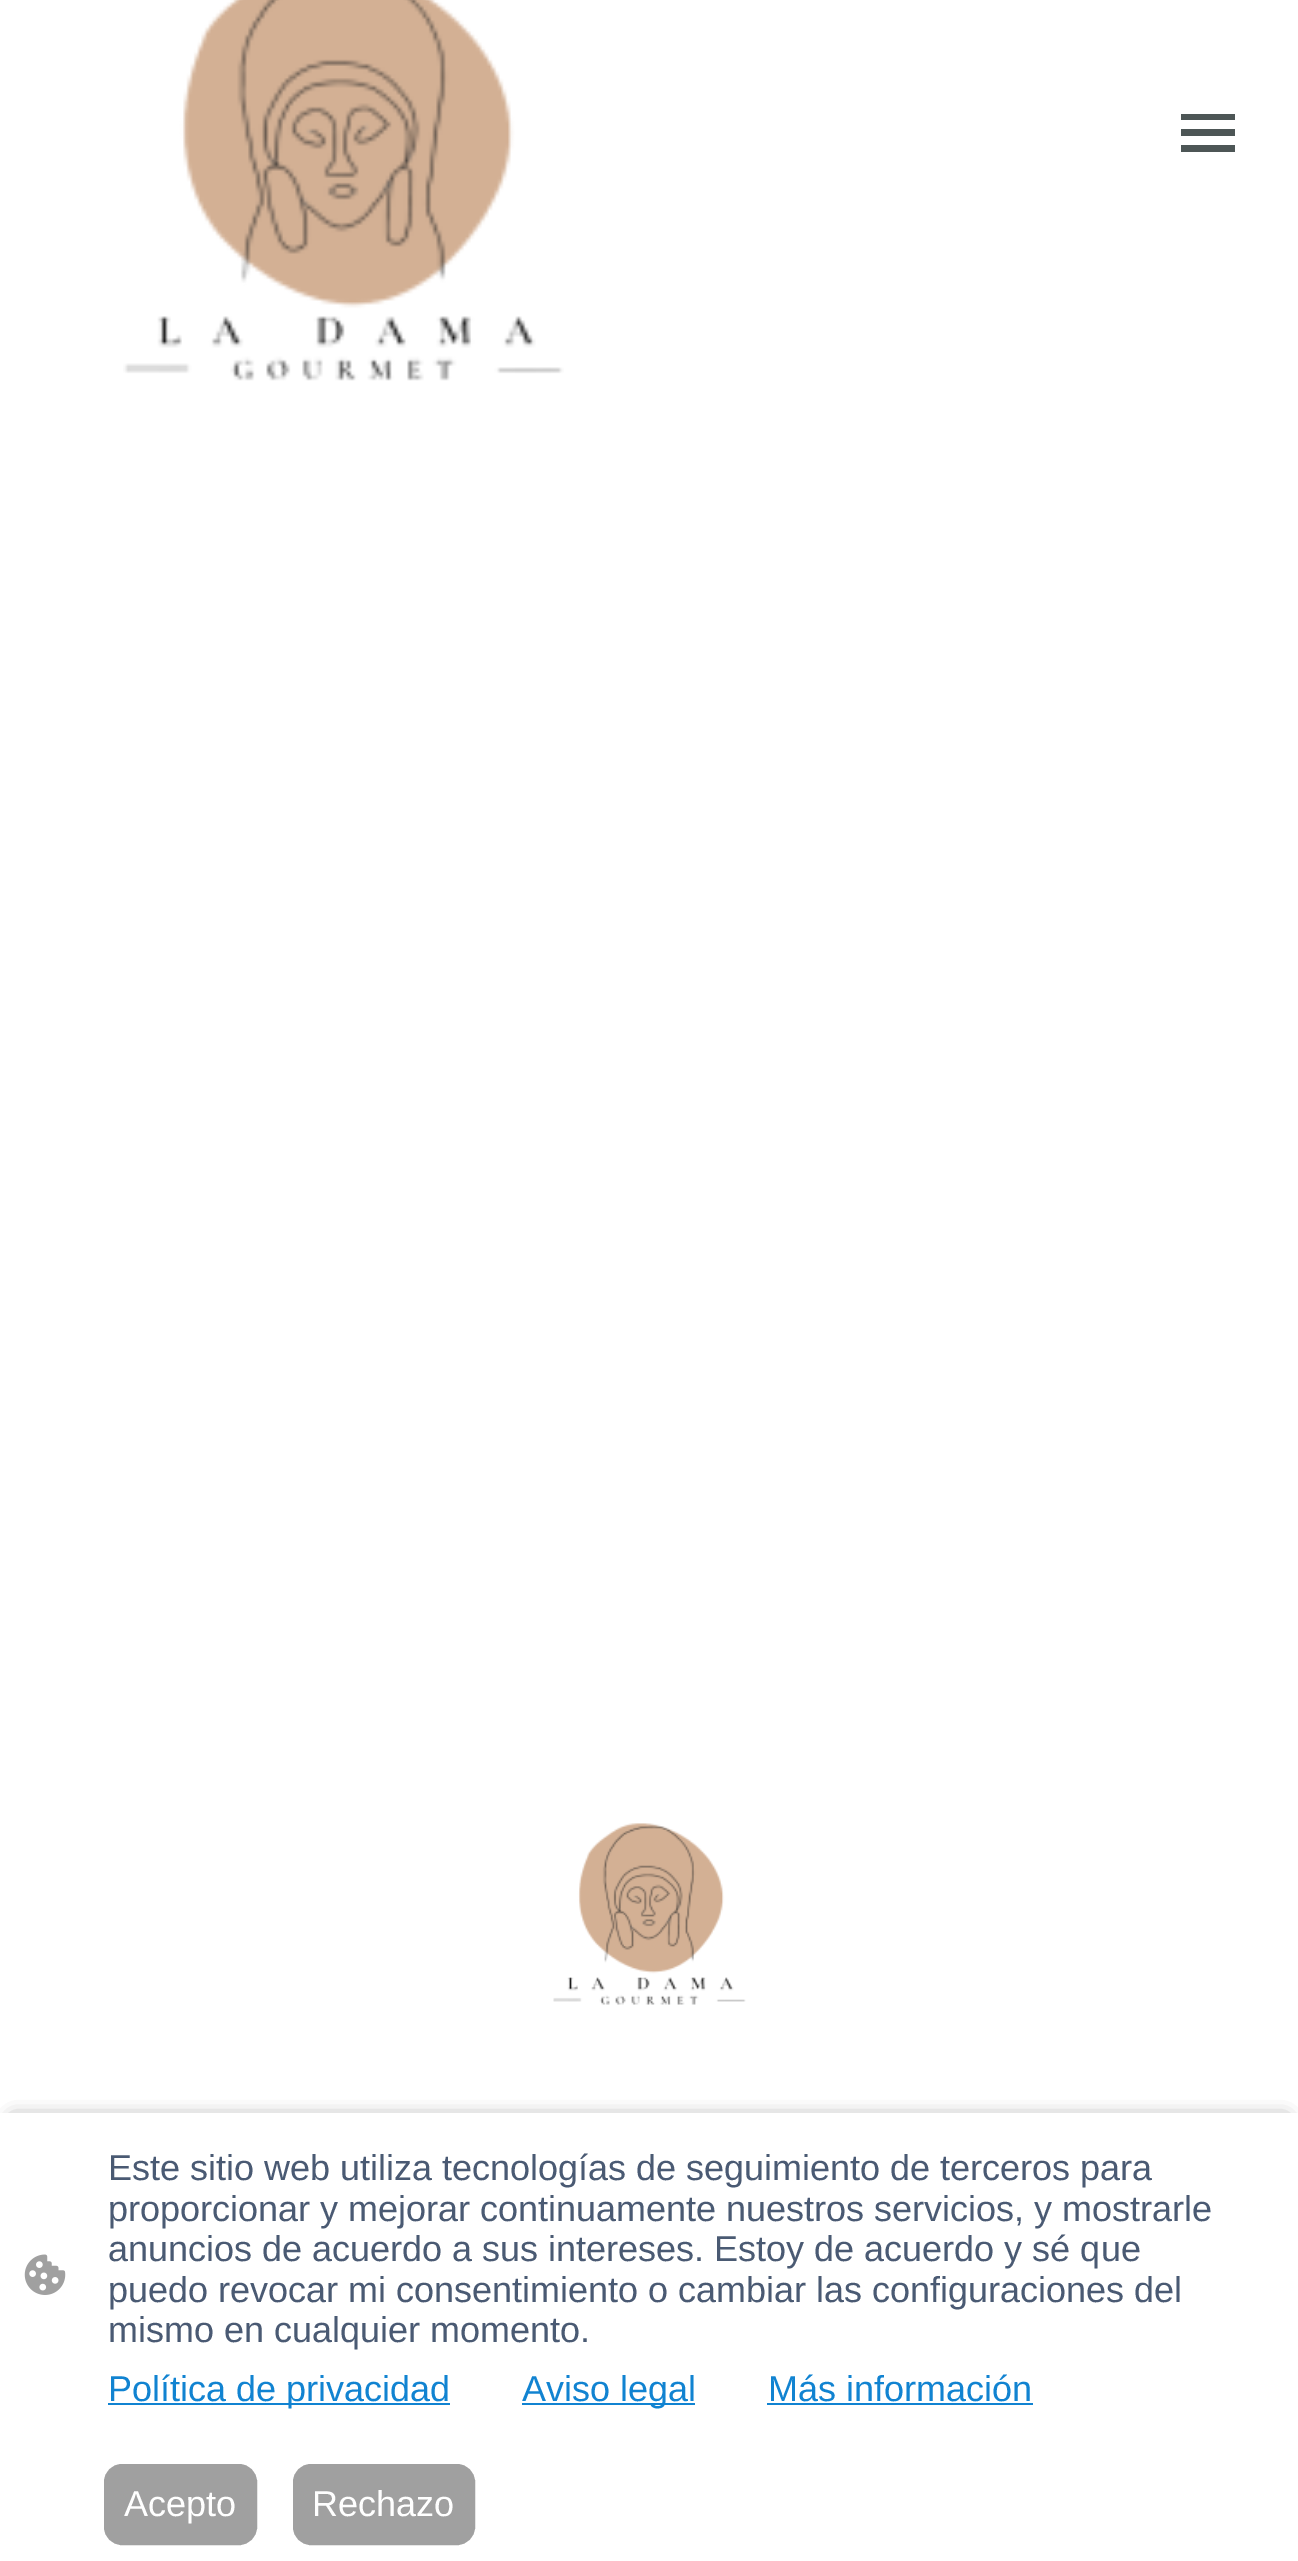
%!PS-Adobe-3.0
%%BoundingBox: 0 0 1298 2561
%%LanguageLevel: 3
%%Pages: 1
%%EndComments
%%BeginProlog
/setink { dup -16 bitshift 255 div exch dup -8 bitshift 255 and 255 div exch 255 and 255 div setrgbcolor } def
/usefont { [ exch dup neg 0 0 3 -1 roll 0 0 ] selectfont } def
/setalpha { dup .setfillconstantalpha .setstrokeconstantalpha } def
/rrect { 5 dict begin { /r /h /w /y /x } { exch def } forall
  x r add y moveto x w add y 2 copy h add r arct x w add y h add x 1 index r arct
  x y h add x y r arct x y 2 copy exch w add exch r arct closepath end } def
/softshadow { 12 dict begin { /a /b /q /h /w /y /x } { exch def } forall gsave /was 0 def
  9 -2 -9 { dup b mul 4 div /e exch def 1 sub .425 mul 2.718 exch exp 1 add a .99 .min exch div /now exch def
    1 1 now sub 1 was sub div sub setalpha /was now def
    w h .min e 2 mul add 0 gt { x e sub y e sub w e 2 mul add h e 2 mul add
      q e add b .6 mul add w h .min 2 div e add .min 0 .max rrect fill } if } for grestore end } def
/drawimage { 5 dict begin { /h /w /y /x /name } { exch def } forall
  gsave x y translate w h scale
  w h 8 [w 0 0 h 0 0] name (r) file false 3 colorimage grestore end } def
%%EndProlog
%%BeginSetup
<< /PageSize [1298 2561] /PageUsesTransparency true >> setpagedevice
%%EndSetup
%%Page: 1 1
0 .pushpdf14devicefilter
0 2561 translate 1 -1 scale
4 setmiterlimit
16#FFFFFF setink
0 0 1298 2561 rectfill
(img1.raw) 123 0 441 381 drawimage
[
    [1181 114 54 6 16#4D5656]
    [1181 129 54 7 16#4D5656]
    [1181 145 54 7 16#4D5656]
] { aload pop setink rectfill } forall
(img2.raw) 553 1823 193 182 drawimage
16#000000 setink
14 2120 1271 423 0 9 0.63 softshadow
16#FFFFFF setink
0 2113 1298 448 rectfill
(img3.raw) 24 2254 42 41 drawimage
/LiberationSans-Regular 36 usefont
16#4A5A73 setink
[
    [(Este sitio web utiliza tecnologías de seguimiento de terceros para) 108 2180]
    [(proporcionar y mejorar continuamente nuestros servicios, y mostrarle) 108 2221]
    [(anuncios de acuerdo a sus intereses. Estoy de acuerdo y sé que) 108 2261]
    [(puedo revocar mi consentimiento o cambiar las configuraciones del) 108 2302]
    [(mismo en cualquier momento.) 108 2342]
] { aload pop moveto show } forall
16#1183D1 setink
108 2403 342 2 rectfill
108 2401 moveto (Política de privacidad) show
522 2403 173 2 rectfill
522 2401 moveto (Aviso legal) show
768 2401 moveto (Más información) show
767 2403 266 2 rectfill
16#A0A0A0 setink
105 2465 151 79 17 rrect gsave fill grestore
2 setlinewidth
stroke
16#FFFFFF setink
124 2516 moveto (Acepto) show
16#A0A0A0 setink
294 2465 180 79 17 rrect gsave fill grestore
stroke
16#FFFFFF setink
312 2516 moveto (Rechazo) show
.poppdf14devicefilter showpage
%%EOF
